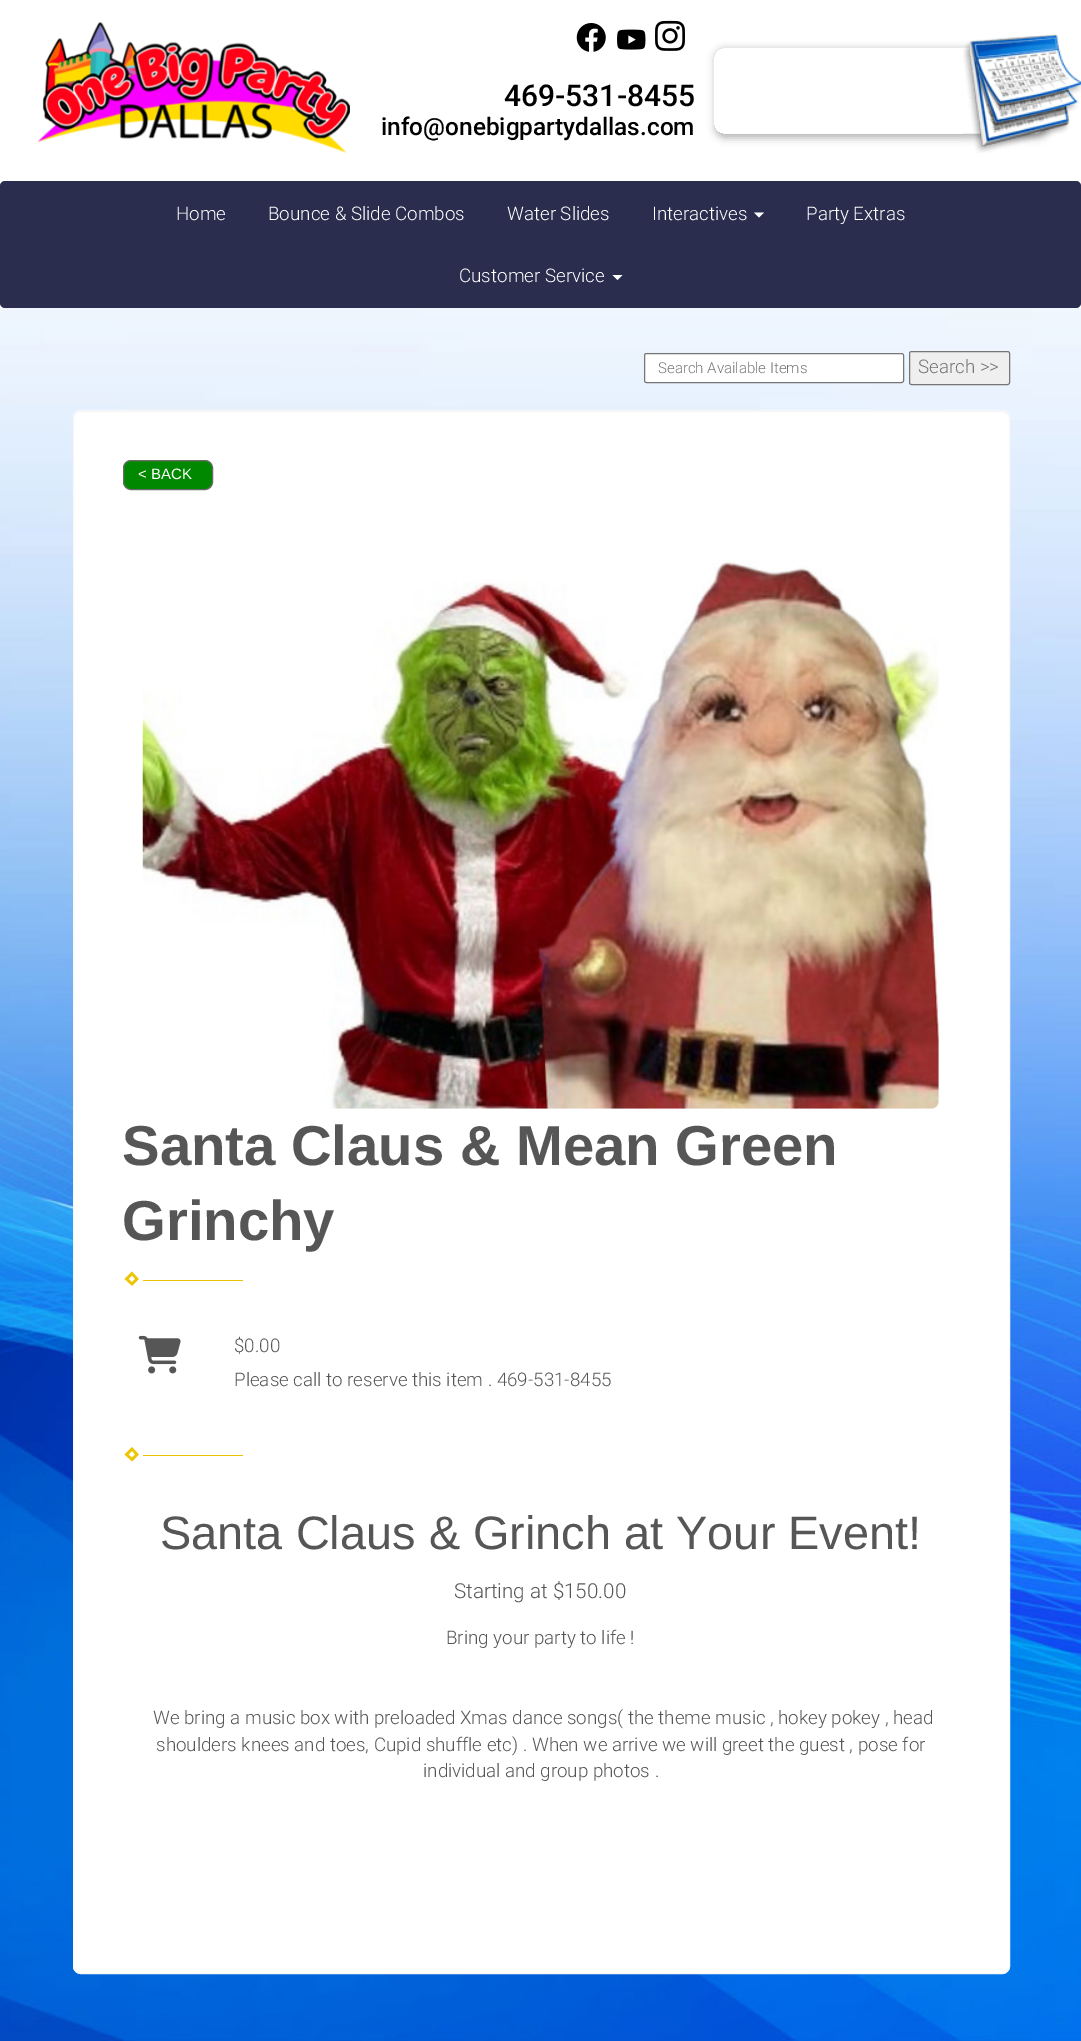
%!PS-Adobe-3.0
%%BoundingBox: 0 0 1081 2041
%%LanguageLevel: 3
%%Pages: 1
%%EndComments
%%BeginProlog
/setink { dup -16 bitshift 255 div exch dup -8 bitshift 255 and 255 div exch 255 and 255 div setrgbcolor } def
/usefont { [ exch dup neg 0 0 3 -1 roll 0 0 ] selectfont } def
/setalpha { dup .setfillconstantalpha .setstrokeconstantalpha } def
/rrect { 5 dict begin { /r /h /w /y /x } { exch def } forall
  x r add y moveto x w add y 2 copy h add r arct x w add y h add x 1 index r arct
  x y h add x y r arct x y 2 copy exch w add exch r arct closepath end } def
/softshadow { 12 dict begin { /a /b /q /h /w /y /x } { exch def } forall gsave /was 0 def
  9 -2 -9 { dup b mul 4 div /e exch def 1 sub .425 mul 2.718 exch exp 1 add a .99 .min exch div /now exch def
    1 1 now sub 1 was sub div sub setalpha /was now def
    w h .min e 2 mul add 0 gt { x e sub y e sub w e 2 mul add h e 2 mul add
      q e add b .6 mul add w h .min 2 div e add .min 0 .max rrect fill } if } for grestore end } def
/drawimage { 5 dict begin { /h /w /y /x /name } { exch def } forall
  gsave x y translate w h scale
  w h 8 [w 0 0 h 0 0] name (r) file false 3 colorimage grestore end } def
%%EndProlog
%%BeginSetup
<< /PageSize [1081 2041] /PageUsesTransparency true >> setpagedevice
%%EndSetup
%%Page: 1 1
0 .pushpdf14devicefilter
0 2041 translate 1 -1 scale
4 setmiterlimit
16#FFFFFF setink
0 0 1081 2041 rectfill
(img1.raw) 0 308 1081 1733 drawimage
(img2.raw) 37 22 313 131 drawimage
(img3.raw) 576 23 30 29 drawimage
(img4.raw) 617 29 29 21 drawimage
(img5.raw) 655 20 30 31 drawimage
/Roboto-Medium 30 usefont
16#000000 setink
504 106 moveto (469-531-8455) show
/Roboto-Medium 24.4 usefont
381 135 moveto (info@onebigpartydallas.com) show
gsave
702 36 moveto 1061 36 lineto 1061 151 lineto 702 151 lineto closepath 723 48 moveto 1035 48 lineto 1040 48 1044 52 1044 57 curveto 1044 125 lineto 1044 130 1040 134 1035 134 curveto 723 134 lineto 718 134 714 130 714 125 curveto 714 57 lineto 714 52 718 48 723 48 curveto closepath eoclip newpath
715 49 333 89 10 4 0.29 softshadow
grestore
(img6.raw) 963 34 118 119 drawimage
16#2A2D4D setink
0 181 1081 127 5 rrect fill
/Roboto-Light 18.75 usefont
16#FFFFFF setink
[
    [(Home) 176 220]
    [(Bounce & Slide Combos) 268 220]
    [(Water Slides) 507 220]
    [(Interactives) 652 220]
] { aload pop moveto show } forall
754 212.5 moveto 764 212.5 lineto 759 217.5 lineto closepath fill
806 220 moveto (Party Extras) show
459 282 moveto (Customer Service) show
612.5 275 moveto 622.5 275 lineto 617.5 280 lineto closepath fill
644.5 353.5 259 29 2 rrect gsave fill grestore
16#767676 setink
stroke
/Roboto-Light 15 usefont
16#757575 setink
658 373 moveto (Search Available Items) show
16#EFEFEF setink
909.5 351.5 100 33 2 rrect gsave fill grestore
16#767676 setink
stroke
/Roboto-Light 18.75 usefont
16#757575 setink
918 373 moveto (Search >>) show
16#FFFFFF setink
73 410 937 1564 8 rrect fill
16#F2F2F2 setink
80 412 moveto 1002 412 lineto 1006 412 1009 415 1009 419 curveto 1009 417 lineto 1009 414 1006 411 1003 411 curveto 80 411 lineto 77 411 74 414 74 417 curveto 74 419 lineto 74 415 77 412 80 412 curveto closepath fill
16#F9F8F8 setink
73.5 410.5 936 1563 7.5 rrect stroke
16#008800 setink
123.5 460.5 89 29 7.5 rrect gsave fill grestore
16#6B6B6B setink
stroke
/LiberationSans-Regular 15 usefont
16#FFFFFF setink
138 479 moveto (< BACK) show
(img7.raw) 142 559 797 550 drawimage
/LiberationSans-Bold 56.25 usefont
16#565656 setink
122 1165 moveto (Santa Claus & Mean Green) show
122 1240 moveto (Grinchy) show
16#EEC400 setink
2.5 setlinewidth
132 1273.5 moveto 137 1279 lineto 132 1284 lineto 126.5 1279 lineto closepath stroke
143 1280 100 1 rectfill
(img8.raw) 138 1335 43 39 drawimage
/Roboto-Light 18.75 usefont
16#565656 setink
234 1352 moveto ($0.00) show
234 1386 moveto (Please call to reserve this item . 469-531-8455) show
16#EEC400 setink
132 1449 moveto 137 1454.5 lineto 132 1459.5 lineto 126.5 1454.5 lineto closepath stroke
143 1455 100 1 rectfill
/LiberationSans-Regular 46.9 usefont
16#565656 setink
160 1549 moveto (Santa Claus & Grinch at Your Event!) show
/Roboto-Light 20.6 usefont
454 1598 moveto (Starting at $150.00) show
/Roboto-Light 18.75 usefont
[
    [(Bring your party to life !) 446 1644]
    [(We bring a music box with preloaded Xmas dance songs\( the theme music , hokey pokey , head) 153 1724]
    [(shoulders knees and toes, Cupid shuffle etc\) . When we arrive we will greet the guest , pose for) 156 1751]
    [(individual and group photos .) 423 1777]
] { aload pop moveto show } forall
.poppdf14devicefilter showpage
%%EOF
